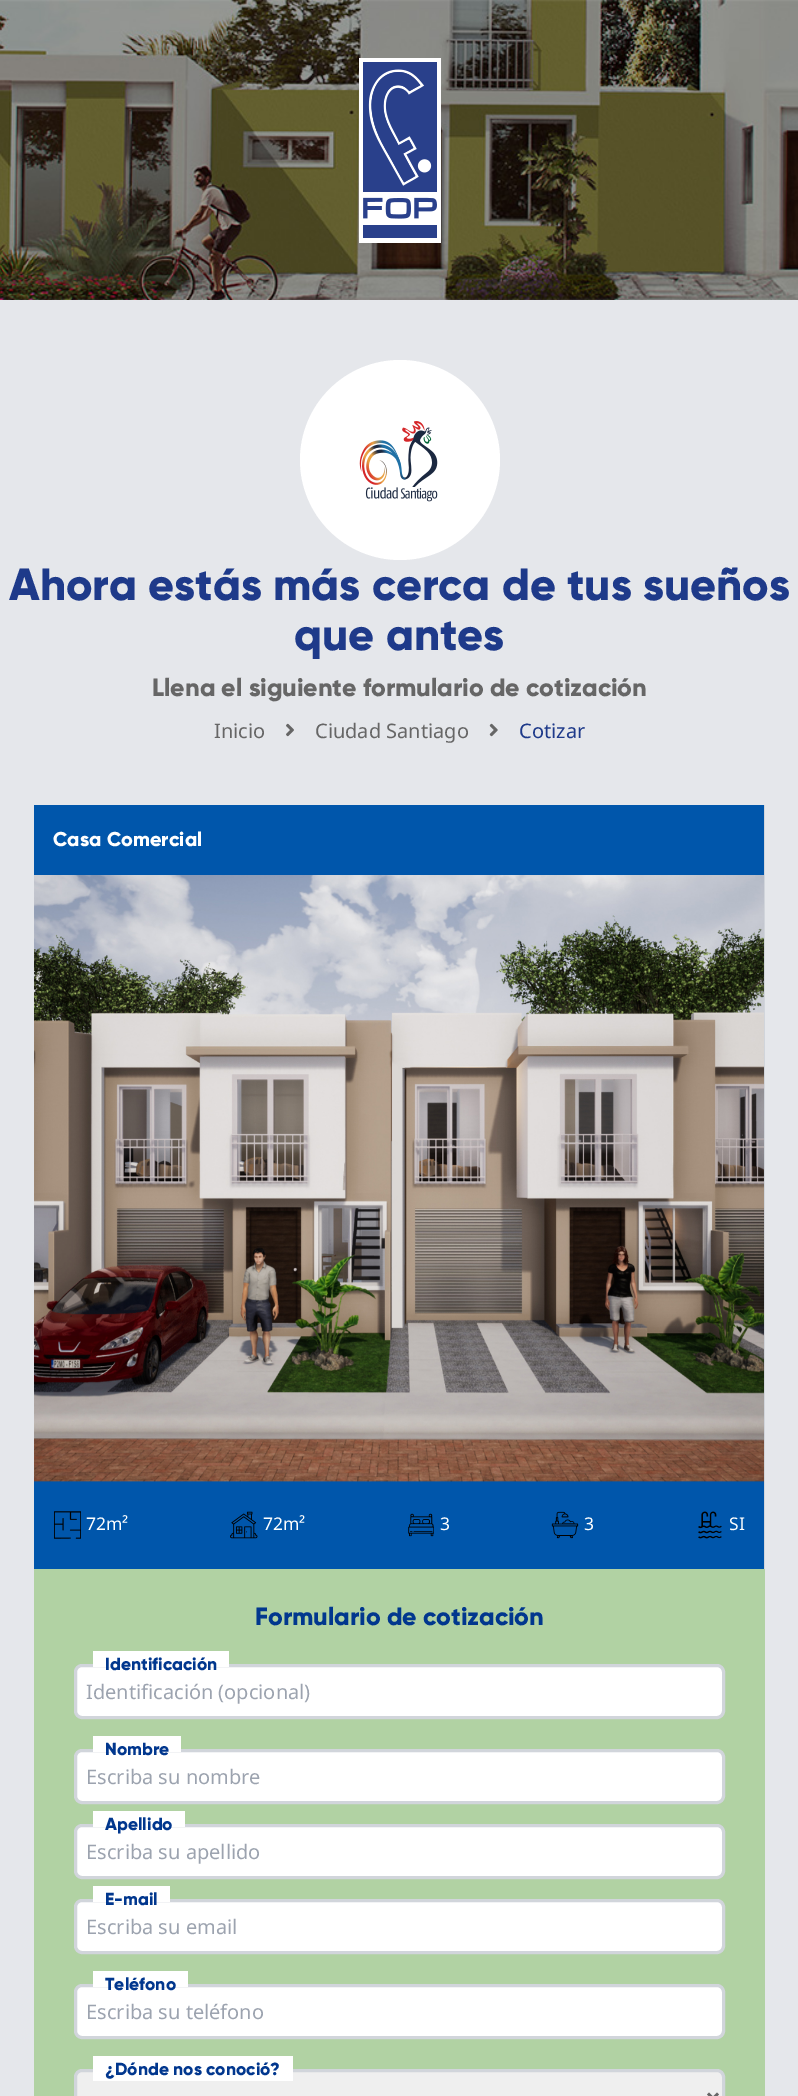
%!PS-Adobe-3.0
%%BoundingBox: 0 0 798 2096
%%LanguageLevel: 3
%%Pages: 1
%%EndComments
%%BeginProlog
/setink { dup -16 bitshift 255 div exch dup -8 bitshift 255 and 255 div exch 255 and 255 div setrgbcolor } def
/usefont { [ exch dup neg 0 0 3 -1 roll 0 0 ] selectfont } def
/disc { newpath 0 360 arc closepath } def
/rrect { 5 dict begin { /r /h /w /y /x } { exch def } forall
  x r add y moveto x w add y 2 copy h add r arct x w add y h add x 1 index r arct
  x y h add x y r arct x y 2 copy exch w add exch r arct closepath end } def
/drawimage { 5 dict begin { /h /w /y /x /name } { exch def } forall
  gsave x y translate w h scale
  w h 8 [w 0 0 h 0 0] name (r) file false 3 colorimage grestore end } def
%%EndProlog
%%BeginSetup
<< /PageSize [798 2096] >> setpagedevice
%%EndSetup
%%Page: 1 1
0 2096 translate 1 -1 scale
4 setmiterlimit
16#FFFFFF setink
0 0 798 2096 rectfill
(img1.raw) 0 0 798 300 drawimage
(img2.raw) 359 58 82 185 drawimage
16#E5E7EB setink
0 300 798 1796 rectfill
16#FFFFFF setink
400 460 100 disc fill
(img3.raw) 359 421 79 81 drawimage
/Gilroy-ExtraBold 45 usefont
16#1E3A8A setink
9 600 moveto (Ahora estás más cerca de tus sueños) show
294 650 moveto (que antes) show
/Gilroy-ExtraBold 25 usefont
16#666666 setink
152 696 moveto (Llena el siguiente formulario de cotización) show
/NotoSans-Regular 20 usefont
214 738 moveto (Inicio) show
(img4.raw) 286 723 8 14 drawimage
315 738 moveto (Ciudad Santiago) show
(img5.raw) 489 723 9 14 drawimage
16#1E3A8A setink
519 738 moveto (Cotizar) show
16#0056AB setink
34 805 730 764 rectfill
16#D1D5DB setink
764 805 1 764 rectfill
/Gilroy-ExtraBold 20 usefont
16#FFFFFF setink
53 846 moveto (Casa Comercial) show
(img6.raw) 34 875 730 607 drawimage
(img7.raw) 54 1511 27 28 drawimage
/NotoSans-Regular 17.5 usefont
86 1530 moveto (72m²) show
(img8.raw) 230 1511 28 28 drawimage
263 1530 moveto (72m²) show
(img9.raw) 408 1513 26 24 drawimage
440 1530 moveto (3) show
(img10.raw) 551 1511 28 28 drawimage
584 1530 moveto (3) show
(img11.raw) 698 1511 24 28 drawimage
729 1530 moveto (SI) show
16#B1D2A3 setink
34 1569 731 527 rectfill
/Gilroy-ExtraBold 25 usefont
16#01378E setink
255 1625 moveto (Formulario de cotización) show
16#FFFFFF setink
75.5 1665.5 648 52 6.5 rrect gsave fill grestore
16#D1D5DB setink
3 setlinewidth
stroke
16#FFFFFF setink
93 1651 136 16 rectfill
/Gilroy-ExtraBold 17.5 usefont
16#01378E setink
105 1670 moveto (Identificación) show
/NotoSans-Regular 20 usefont
16#9CA3AF setink
86 1699 moveto (Identificación \(opcional\)) show
16#FFFFFF setink
75.5 1750.5 648 52 6.5 rrect gsave fill grestore
16#D1D5DB setink
stroke
16#FFFFFF setink
93 1736 88 16 rectfill
/Gilroy-ExtraBold 17.5 usefont
16#01378E setink
105 1755 moveto (Nombre) show
/NotoSans-Regular 20 usefont
16#9CA3AF setink
86 1784 moveto (Escriba su nombre) show
16#FFFFFF setink
75.5 1825.5 648 52 6.5 rrect gsave fill grestore
16#D1D5DB setink
stroke
16#FFFFFF setink
93 1811 92 16 rectfill
/Gilroy-ExtraBold 17.5 usefont
16#01378E setink
105 1830 moveto (Apellido) show
/NotoSans-Regular 20 usefont
16#9CA3AF setink
86 1859 moveto (Escriba su apellido) show
16#FFFFFF setink
75.5 1900.5 648 52 6.5 rrect gsave fill grestore
16#D1D5DB setink
stroke
16#FFFFFF setink
93 1886 77 16 rectfill
/Gilroy-ExtraBold 17.5 usefont
16#01378E setink
105 1905 moveto (E-mail) show
/NotoSans-Regular 20 usefont
16#9CA3AF setink
86 1934 moveto (Escriba su email) show
16#FFFFFF setink
75.5 1985.5 648 52 6.5 rrect gsave fill grestore
16#D1D5DB setink
stroke
16#FFFFFF setink
93 1971 95 16 rectfill
/Gilroy-ExtraBold 17.5 usefont
16#01378E setink
105 1990 moveto (Teléfono) show
/NotoSans-Regular 20 usefont
16#9CA3AF setink
86 2019 moveto (Escriba su teléfono) show
16#EFEFEF setink
75.5 2070.5 648 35 6.5 rrect gsave fill grestore
16#D1D5DB setink
stroke
16#FFFFFF setink
93 2056 200 25 rectfill
/Gilroy-ExtraBold 17.5 usefont
16#01378E setink
105 2075 moveto (¿Dónde nos conoció?) show
16#666666 setink
2.5 setlinewidth
708 2093.5 moveto 713 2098.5 lineto 718 2093.5 lineto stroke
showpage
%%EOF
